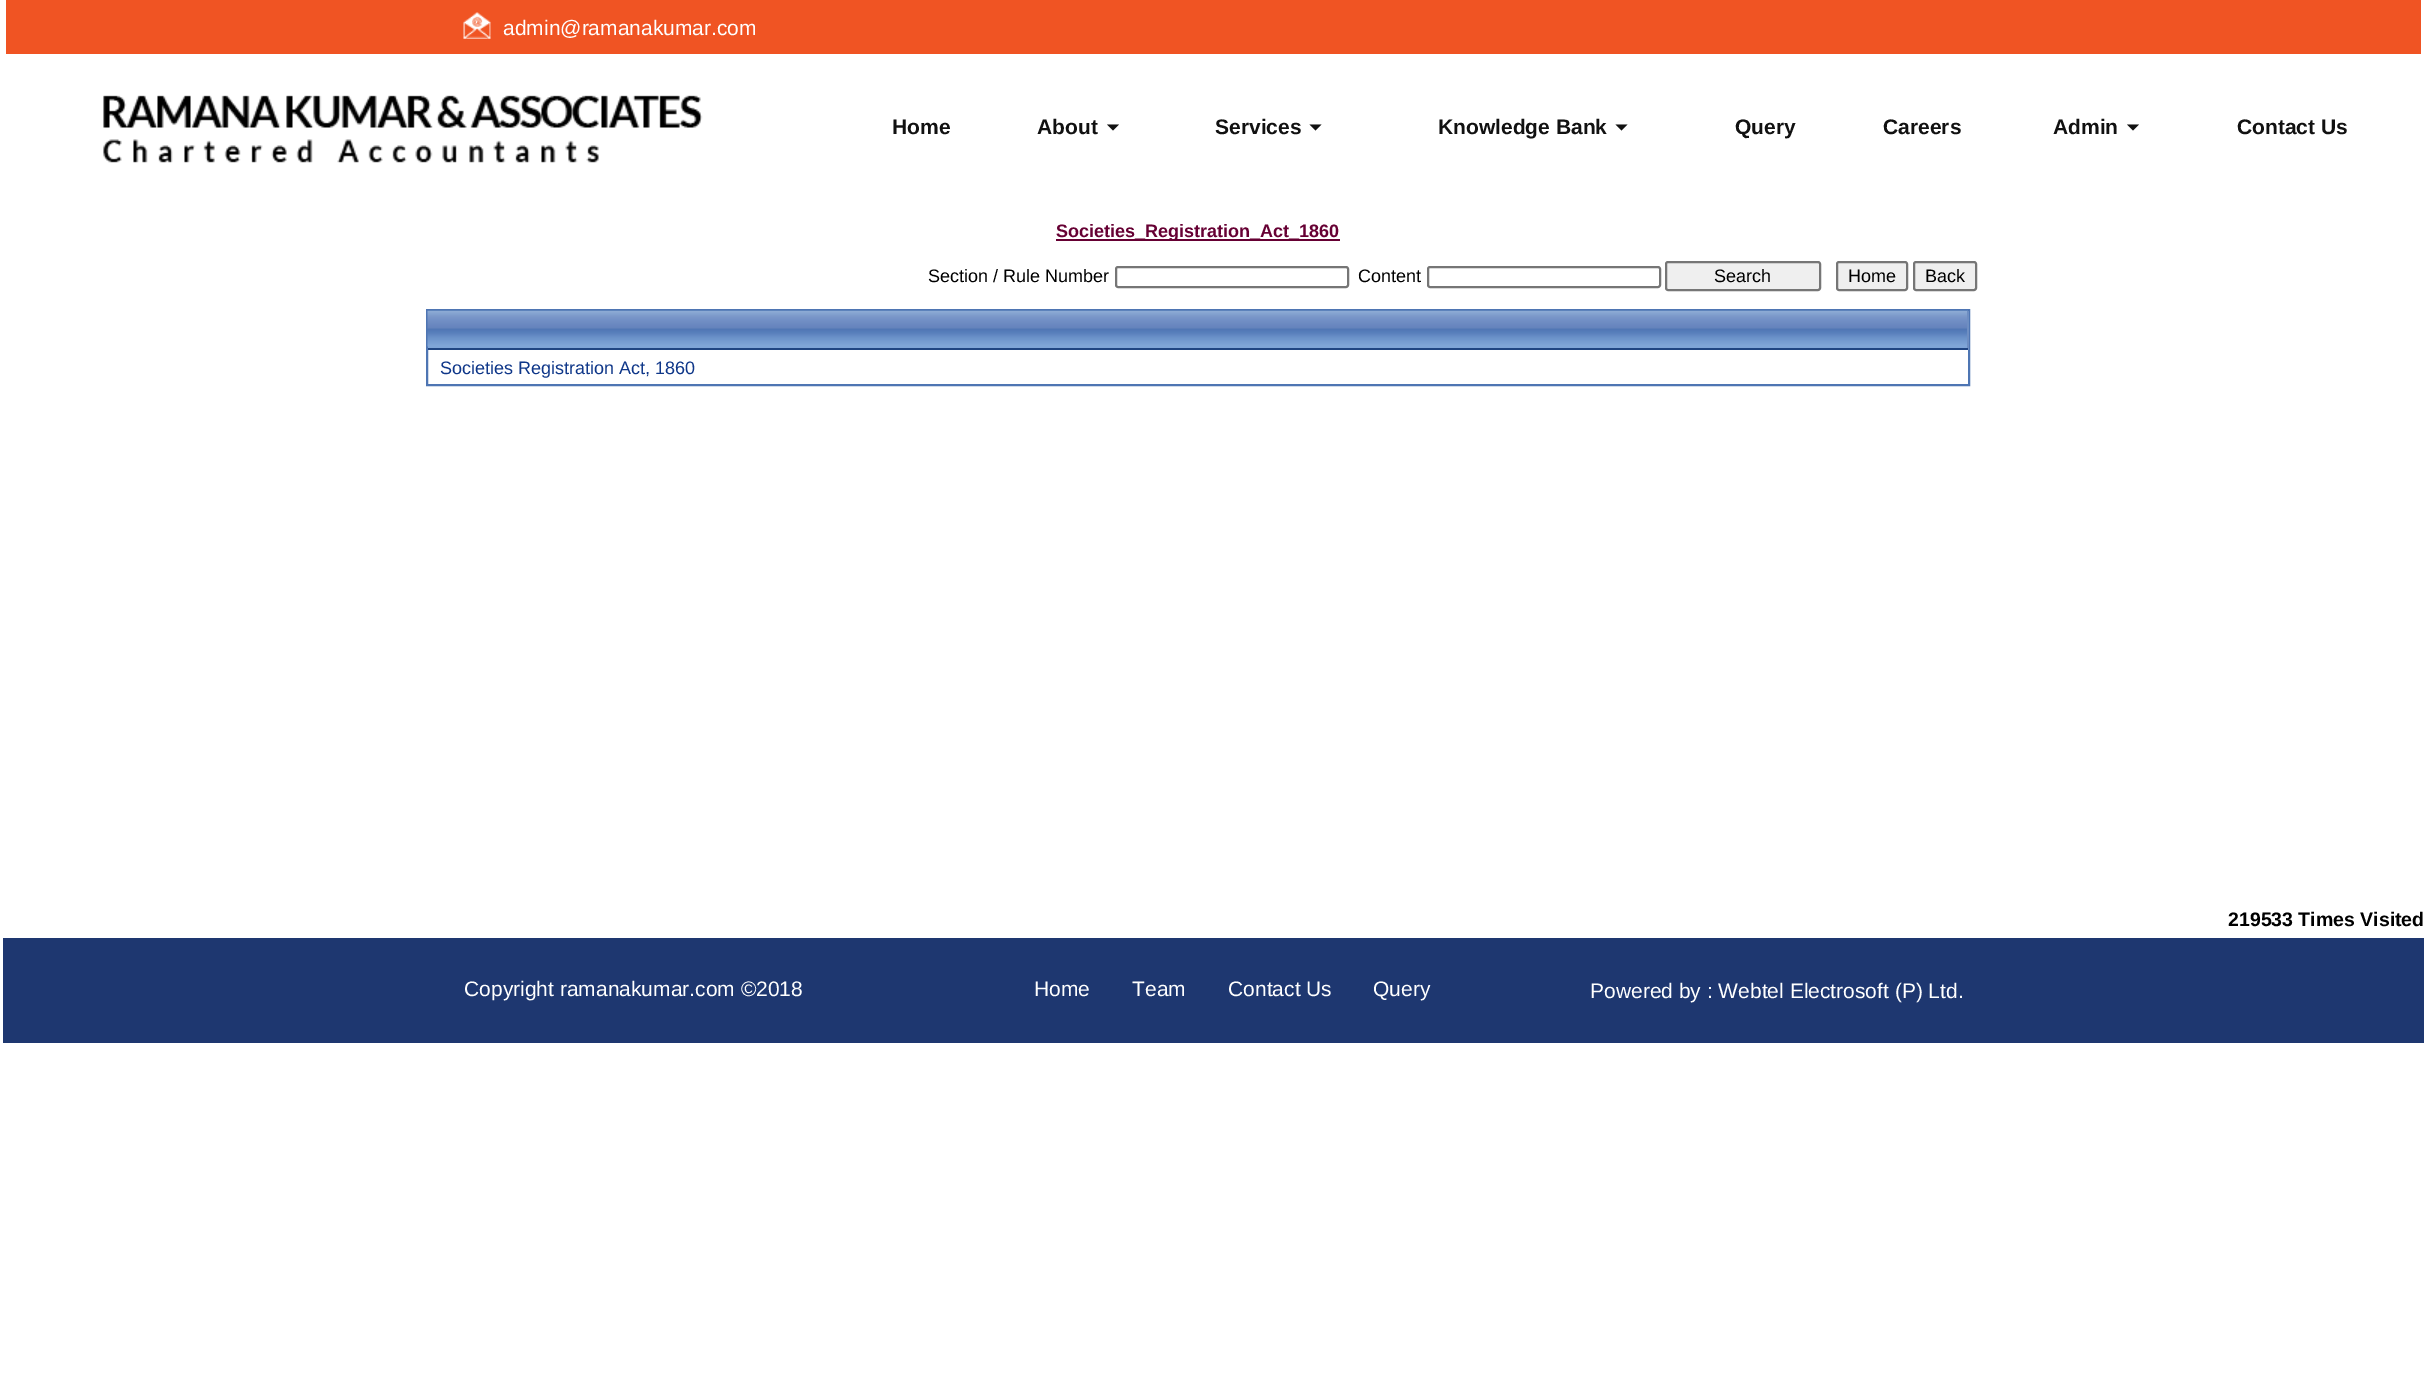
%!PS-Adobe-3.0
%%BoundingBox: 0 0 2426 1390
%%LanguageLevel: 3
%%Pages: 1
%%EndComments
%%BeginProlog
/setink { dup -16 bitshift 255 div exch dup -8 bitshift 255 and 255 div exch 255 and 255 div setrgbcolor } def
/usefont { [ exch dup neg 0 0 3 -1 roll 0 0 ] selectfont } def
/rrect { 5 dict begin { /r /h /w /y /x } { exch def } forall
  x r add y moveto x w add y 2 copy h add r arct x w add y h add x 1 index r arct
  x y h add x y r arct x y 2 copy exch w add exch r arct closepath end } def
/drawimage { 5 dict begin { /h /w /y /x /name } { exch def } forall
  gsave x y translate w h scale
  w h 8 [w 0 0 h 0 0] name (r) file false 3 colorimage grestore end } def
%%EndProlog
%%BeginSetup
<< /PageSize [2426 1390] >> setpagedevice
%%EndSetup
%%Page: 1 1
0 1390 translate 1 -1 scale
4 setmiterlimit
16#FFFFFF setink
0 0 2426 1390 rectfill
16#F05423 setink
6 0 2415 54 rectfill
(img1.raw) 463 12 28 27 drawimage
/LiberationSans-Regular 21 usefont
16#FFFFFF setink
503 35 moveto (admin@ramanakumar.com) show
(img2.raw) 103 95 600 68 drawimage
/LiberationSans-Bold 21 usefont
16#111111 setink
892 134 moveto (Home) show
1037 134 moveto (About) show
1107 124.5 moveto 1119 124.5 lineto 1113 130.5 lineto closepath fill
1215 134 moveto (Services) show
1309.5 124.5 moveto 1321.5 124.5 lineto 1315.5 130.5 lineto closepath fill
1438 134 moveto (Knowledge Bank) show
1615.5 124.5 moveto 1627.5 124.5 lineto 1621.5 130.5 lineto closepath fill
[
    [(Query) 1735 134]
    [(Careers) 1883 134]
    [(Admin) 2053 134]
] { aload pop moveto show } forall
2127 124.5 moveto 2139 124.5 lineto 2133 130.5 lineto closepath fill
2237 134 moveto (Contact Us) show
16#660033 setink
1056 239 284 2 rectfill
/LiberationSans-Bold 18 usefont
1056 237 moveto (Societies_Registration_Act_1860) show
/LiberationSans-Regular 18 usefont
16#000000 setink
928 282 moveto (Section / Rule Number) show
16#767676 setink
2 setlinewidth
1116 267 232 20 2 rrect stroke
16#000000 setink
1358 282 moveto (Content) show
16#767676 setink
1428 267 232 20 2 rrect stroke
16#EFEFEF setink
1666 262 154 28 2 rrect gsave fill grestore
16#767676 setink
stroke
16#000000 setink
1714 282 moveto (Search) show
16#EFEFEF setink
1837 262 70 28 2 rrect gsave fill grestore
16#767676 setink
stroke
16#000000 setink
1848 282 moveto (Home) show
16#EFEFEF setink
1914 262 62 28 2 rrect gsave fill grestore
16#767676 setink
stroke
16#000000 setink
1925 282 moveto (Back) show
16#4E75B3 setink
427 310 1542 75 rectstroke
16#7FA5D7 setink
428 346 1539 2 rectfill
(img3.raw) 427 310 1541 37 drawimage
16#6E8EC2 setink
1967 311 2 39 rectfill
16#204582 setink
428 348 1540 2 rectfill
16#0F3789 setink
440 374 moveto (Societies Registration Act, 1860) show
/LiberationSans-Bold 19.5 usefont
16#000000 setink
2228 926 moveto (219533 Times Visited) show
16#1E3770 setink
3 938 2421 105 rectfill
/LiberationSans-Regular 21 usefont
16#FFFFFF setink
[
    [(Copyright ramanakumar.com ©2018) 464 996]
    [(Home) 1034 996]
    [(Team) 1132 996]
    [(Contact Us) 1228 996]
    [(Query) 1373 996]
    [(Powered by : Webtel Electrosoft \(P\) Ltd.) 1590 998]
] { aload pop moveto show } forall
showpage
%%EOF
